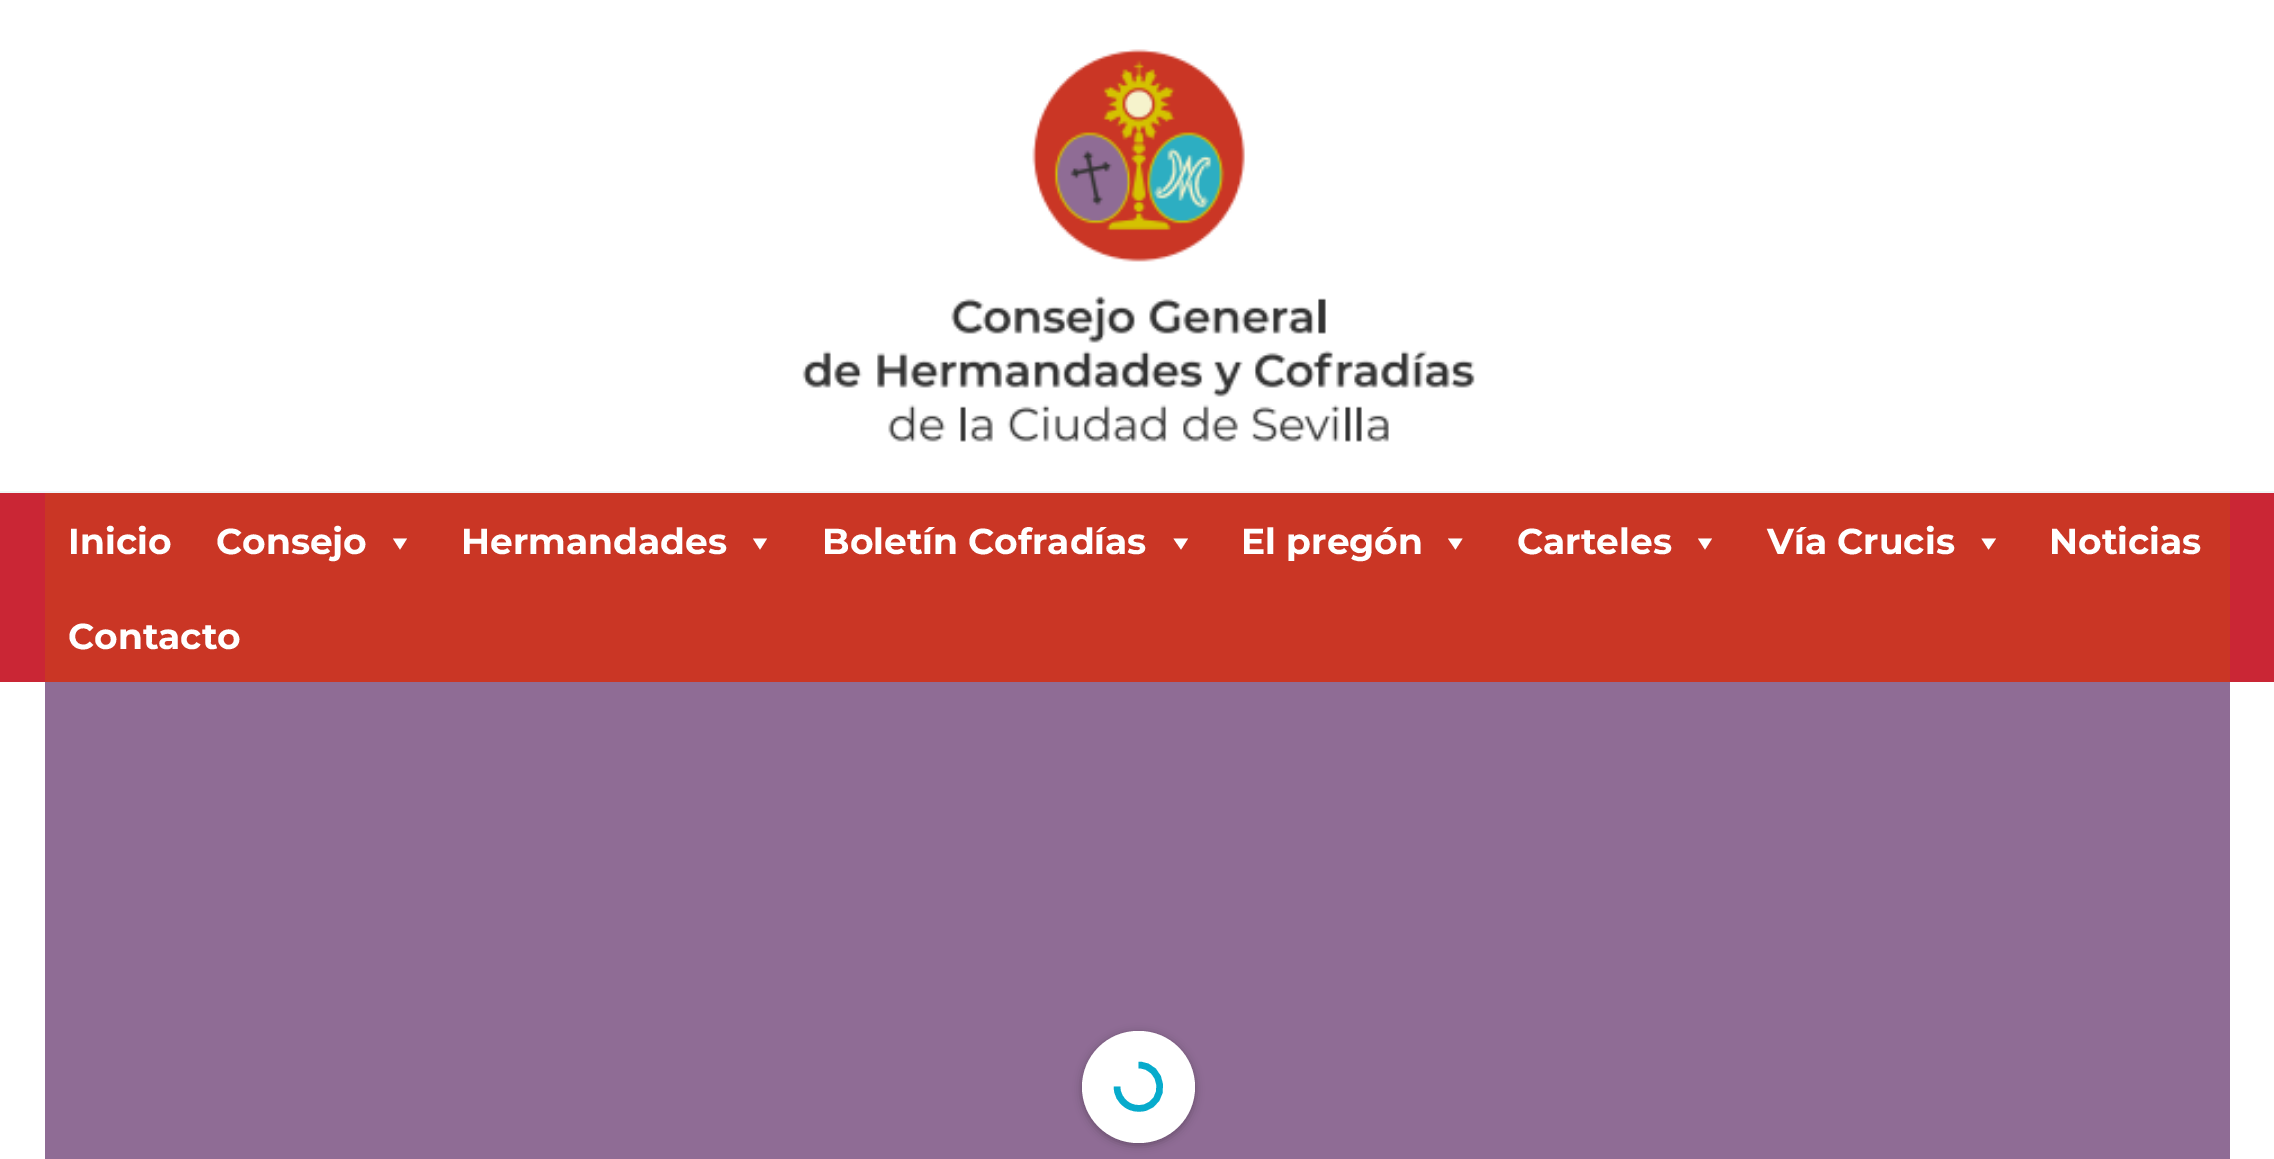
%!PS-Adobe-3.0
%%BoundingBox: 0 0 2274 1159
%%LanguageLevel: 3
%%Pages: 1
%%EndComments
%%BeginProlog
/setink { dup -16 bitshift 255 div exch dup -8 bitshift 255 and 255 div exch 255 and 255 div setrgbcolor } def
/usefont { [ exch dup neg 0 0 3 -1 roll 0 0 ] selectfont } def
/setalpha { dup .setfillconstantalpha .setstrokeconstantalpha } def
/rrect { 5 dict begin { /r /h /w /y /x } { exch def } forall
  x r add y moveto x w add y 2 copy h add r arct x w add y h add x 1 index r arct
  x y h add x y r arct x y 2 copy exch w add exch r arct closepath end } def
/softshadow { 12 dict begin { /a /b /q /h /w /y /x } { exch def } forall gsave /was 0 def
  9 -2 -9 { dup b mul 4 div /e exch def 1 sub .425 mul 2.718 exch exp 1 add a .99 .min exch div /now exch def
    1 1 now sub 1 was sub div sub setalpha /was now def
    w h .min e 2 mul add 0 gt { x e sub y e sub w e 2 mul add h e 2 mul add
      q e add b .6 mul add w h .min 2 div e add .min 0 .max rrect fill } if } for grestore end } def
/drawimage { 5 dict begin { /h /w /y /x /name } { exch def } forall
  gsave x y translate w h scale
  w h 8 [w 0 0 h 0 0] name (r) file false 3 colorimage grestore end } def
%%EndProlog
%%BeginSetup
<< /PageSize [2274 1159] /PageUsesTransparency true >> setpagedevice
%%EndSetup
%%Page: 1 1
0 .pushpdf14devicefilter
0 1159 translate 1 -1 scale
4 setmiterlimit
16#FFFFFF setink
0 0 2274 1159 rectfill
16#F2F5F7 setink
0 491 2274 2 rectfill
(img1.raw) 802 49 673 393 drawimage
16#CA2635 setink
0 493 2274 189 rectfill
16#CA3625 setink
45 493 2185 189 rectfill
/Montserrat-Bold 36 usefont
16#FFFFFF setink
68 554 moveto (Inicio) show
216 554 moveto (Consejo) show
407 538.5 moveto 400 549.5 lineto 393 538.5 lineto closepath fill
461 554 moveto (Hermandades) show
767 538.5 moveto 760 549.5 lineto 753 538.5 lineto closepath fill
822 554 moveto (Boletín Cofradías) show
1188 538.5 moveto 1181 549.5 lineto 1173.5 538.5 lineto closepath fill
1241 554 moveto (El pregón) show
1462.5 538.5 moveto 1455.5 549.5 lineto 1448 538.5 lineto closepath fill
1517 554 moveto (Carteles) show
1712 538.5 moveto 1705 549.5 lineto 1698 538.5 lineto closepath fill
1767 554 moveto (Vía Crucis) show
1996 538.5 moveto 1988.5 549.5 lineto 1981.5 538.5 lineto closepath fill
2049 554 moveto (Noticias) show
68 649 moveto (Contacto) show
16#8F6C95 setink
45 682 2185 477 rectfill
16#000000 setink
1082 1033 113 112 56 4.5 0.3 softshadow
16#FFFFFF setink
1082 1031 113 112 56 rrect fill
16#07ABCC setink
6.5 setlinewidth
1138.5 1065 moveto 1164 1065 1168 1103 1143 1108 curveto 1137 1109 1131 1108 1126.5 1104.5 curveto 1120.5 1100.5 1117 1094 1117 1086.5 curveto stroke
.poppdf14devicefilter showpage
%%EOF
